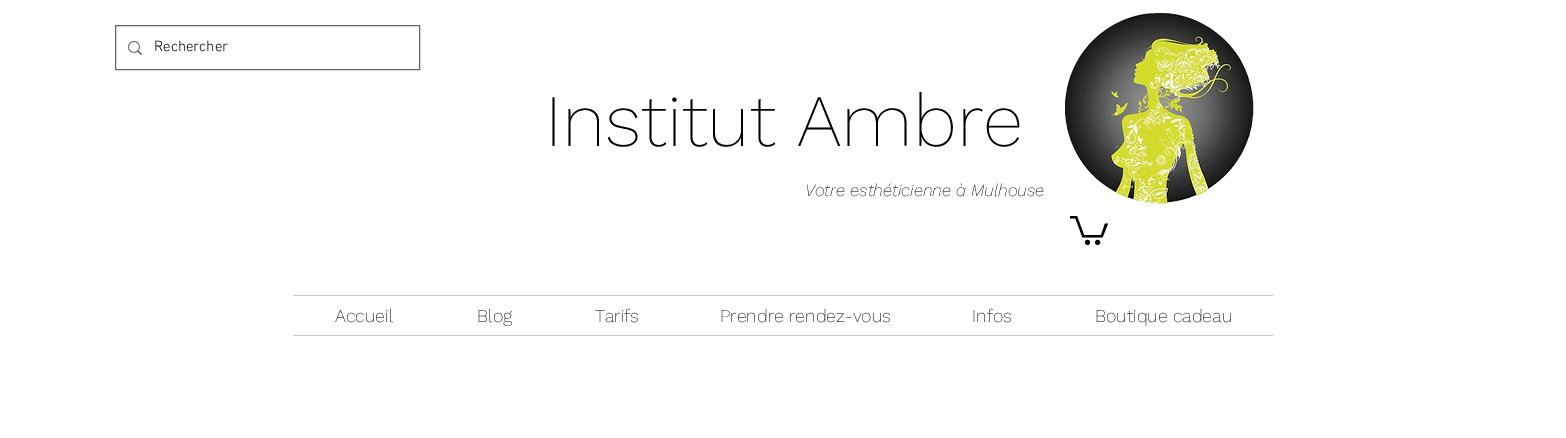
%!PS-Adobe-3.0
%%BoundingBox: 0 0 1566 438
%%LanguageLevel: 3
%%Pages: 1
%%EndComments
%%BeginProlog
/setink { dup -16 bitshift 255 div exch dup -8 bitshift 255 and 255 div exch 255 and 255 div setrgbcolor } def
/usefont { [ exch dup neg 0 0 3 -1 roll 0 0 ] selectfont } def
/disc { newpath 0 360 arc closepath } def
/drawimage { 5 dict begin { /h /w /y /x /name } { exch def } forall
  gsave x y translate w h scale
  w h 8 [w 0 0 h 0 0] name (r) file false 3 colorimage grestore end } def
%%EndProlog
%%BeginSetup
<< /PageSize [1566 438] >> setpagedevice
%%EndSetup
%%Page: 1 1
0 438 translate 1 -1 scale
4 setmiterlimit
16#FFFFFF setink
0 0 1566 438 rectfill
16#666666 setink
115.5 25.5 304 44 rectstroke
(img1.raw) 128 41 14 14 drawimage
/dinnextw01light-Light 15 usefont
16#000000 setink
154 51 moveto (Rechercher) show
(img2.raw) 1064 12 190 192 drawimage
/WorkSans-ExtraLight 74 usefont
545 146 moveto (Institut Ambre) show
/WorkSans-ExtraLightItalic 17 usefont
805 196 moveto (Votre esthéticienne à Mulhouse) show
1108 223.5 moveto 1102.5 237.5 lineto 1082.5 237.5 lineto 1075.5 218.5 lineto 1070 218.5 lineto 1070 216 lineto 1077 216 lineto 1084 235 lineto 1101 235 lineto 1105 223.5 lineto fill
1097.6 242.4 2.5 disc fill
1087.5 242.4 2.5 disc fill
16#CACACA setink
293 295 980 1 rectfill
293 335 980 1 rectfill
/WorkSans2-ExtraLight 18 usefont
16#000000 setink
[
    [(Accueil) 335 322]
    [(Blog) 477 322]
    [(Tarifs) 595 322]
    [(Prendre rendez-vous) 720 322]
    [(Infos) 972 322]
    [(Boutique cadeau) 1095 322]
] { aload pop moveto show } forall
showpage
%%EOF
